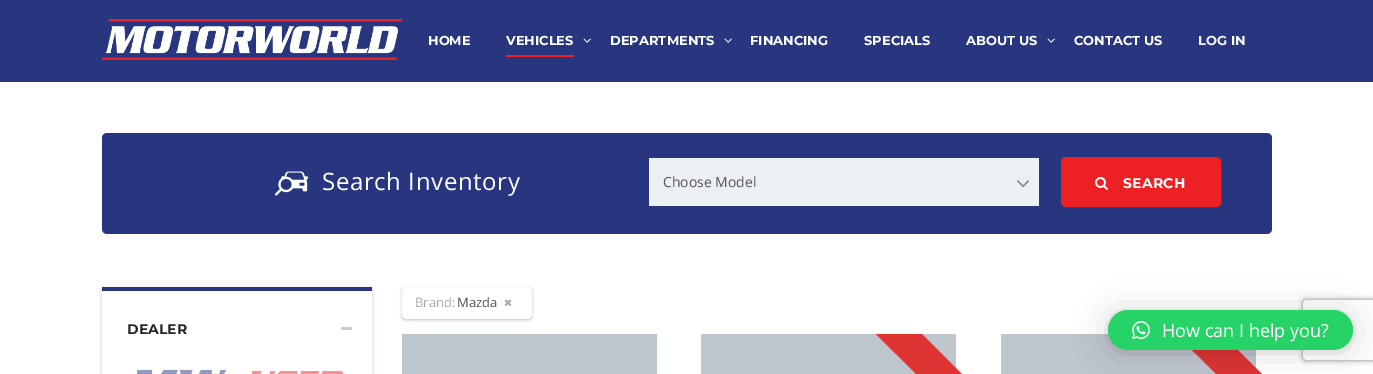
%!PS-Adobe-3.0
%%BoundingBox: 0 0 1373 374
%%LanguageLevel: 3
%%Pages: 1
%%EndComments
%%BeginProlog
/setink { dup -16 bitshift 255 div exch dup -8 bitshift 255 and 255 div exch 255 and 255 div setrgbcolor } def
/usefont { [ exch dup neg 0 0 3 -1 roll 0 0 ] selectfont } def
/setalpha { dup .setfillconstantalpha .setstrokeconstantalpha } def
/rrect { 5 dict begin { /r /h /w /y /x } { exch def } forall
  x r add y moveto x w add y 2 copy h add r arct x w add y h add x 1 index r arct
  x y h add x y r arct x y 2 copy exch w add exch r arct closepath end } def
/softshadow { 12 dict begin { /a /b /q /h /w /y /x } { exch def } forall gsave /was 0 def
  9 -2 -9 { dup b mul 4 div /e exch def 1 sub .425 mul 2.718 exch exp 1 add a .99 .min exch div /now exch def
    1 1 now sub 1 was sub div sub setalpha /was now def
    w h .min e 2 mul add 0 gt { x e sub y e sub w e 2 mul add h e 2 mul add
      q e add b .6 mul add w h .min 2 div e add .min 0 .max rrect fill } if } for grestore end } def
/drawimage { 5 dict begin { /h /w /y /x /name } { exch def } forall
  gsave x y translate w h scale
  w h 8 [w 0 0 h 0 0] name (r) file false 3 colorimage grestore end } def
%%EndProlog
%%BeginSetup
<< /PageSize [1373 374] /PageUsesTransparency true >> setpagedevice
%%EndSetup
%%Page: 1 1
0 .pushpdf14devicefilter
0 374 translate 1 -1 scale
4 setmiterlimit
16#FFFFFF setink
0 0 1373 374 rectfill
16#27367F setink
0 0 1373 82 rectfill
(img1.raw) 102 19 300 41 drawimage
/Montserrat-Bold 13 usefont
16#FFFFFF setink
428 45 moveto (HOME) show
506 45 moveto (VEHICLES) show
(img2.raw) 583 38 8 5 drawimage
16#ED2024 setink
506 55 68 2 rectfill
16#FFFFFF setink
610 45 moveto (DEPARTMENTS) show
(img2.raw) 724 38 8 5 drawimage
[
    [(FINANCING) 750 45]
    [(SPECIALS) 864 45]
    [(ABOUT US) 966 45]
] { aload pop moveto show } forall
(img2.raw) 1047 38 8 5 drawimage
1074 45 moveto (CONTACT US) show
16#F7F7F7 setink
1198 45 moveto (LOG IN) show
16#27367F setink
102 133 1170 101 5 rrect fill
(img3.raw) 275 171 33 25 drawimage
/OpenSans-Regular 24 usefont
16#FFFFFF setink
322 190 moveto 0.6 0 (Search Inventory) ashow
16#ECEFF3 setink
649 158 390 48 rectfill
/OpenSans-Regular 14 usefont
16#555555 setink
663 187 moveto (Choose Model) show
(img4.raw) 1017 180 13 8 drawimage
16#ED2024 setink
1062 158 158 48 4 rrect gsave fill grestore
2 setlinewidth
stroke
(img5.raw) 1095 177 13 13 drawimage
/Montserrat-Bold 14 usefont
16#FFFFFF setink
1123 188 moveto 0.25 0 (SEARCH) ashow
gsave
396 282 moveto 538 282 lineto 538 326 lineto 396 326 lineto closepath 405 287 moveto 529 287 lineto 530.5 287 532 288.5 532 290 curveto 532 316 lineto 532 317.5 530.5 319 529 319 curveto 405 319 lineto 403.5 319 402 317.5 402 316 curveto 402 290 lineto 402 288.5 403.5 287 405 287 curveto closepath eoclip newpath
16#3B3E44 setink
402 288 130 32 3 1.5 0.3 softshadow
grestore
/OpenSans-Regular 13 usefont
16#AAAAAA setink
415 307 moveto (Brand:) show
16#555555 setink
457 307 moveto (Mazda) show
(img6.raw) 504 299 8 7 drawimage
16#BDC5CD setink
402 334 255 40 rectfill
701 334 255 40 rectfill
gsave
701 334 269 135 rectclip
16#DD3333 setink
876 288 moveto 1018 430 lineto 995 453 lineto 853 311 lineto closepath fill
grestore
1001 334 255 40 rectfill
gsave
1001 334 269 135 rectclip
16#DD3333 setink
1176 288 moveto 1318 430 lineto 1295 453 lineto 1153 311 lineto closepath fill
grestore
gsave
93 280 moveto 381 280 lineto 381 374 lineto 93 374 lineto closepath 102 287 moveto 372 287 lineto 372 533 lineto 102 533 lineto closepath eoclip newpath
16#000000 setink
102 289 270 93 0 2.5 0.18 softshadow
grestore
16#27367F setink
102 287 270 4 rectfill
/Montserrat-Bold 14 usefont
16#232628 setink
127 334 moveto (DEALER) show
16#CCCCCC setink
341 327 11 3 rectfill
(img7.raw) 137 369 89 5 drawimage
(img8.raw) 251 371 93 3 drawimage
16#000000 setink
1108 312 245 40 20 16 0.16 softshadow
1108 311 245 40 20 3 0.06 softshadow
gsave
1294 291 moveto 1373 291 lineto 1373 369 lineto 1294 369 lineto closepath 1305 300 moveto 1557 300 lineto 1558 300 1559 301 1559 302 curveto 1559 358 lineto 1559 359 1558 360 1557 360 curveto 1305 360 lineto 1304 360 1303 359 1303 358 curveto 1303 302 lineto 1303 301 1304 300 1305 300 curveto closepath eoclip newpath
16#808080 setink
1303 300 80 60 2 2.5 1 softshadow
grestore
16#25D366 setink
1108 310 245 40 20 rrect fill
(img9.raw) 1132 321 18 19 drawimage
/OpenSans-Regular 18 usefont
16#FFFFFF setink
1162 337 moveto (How can I help you?) show
.poppdf14devicefilter showpage
%%EOF
